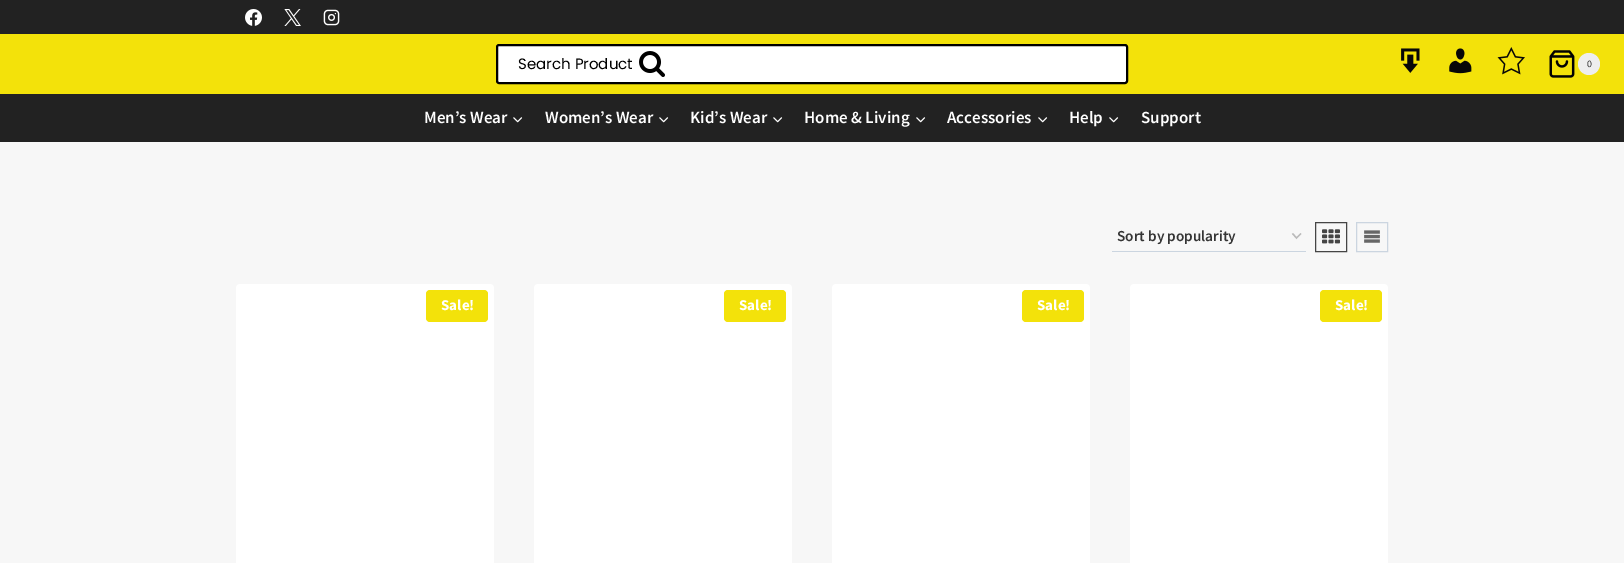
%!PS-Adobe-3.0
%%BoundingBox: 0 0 1624 563
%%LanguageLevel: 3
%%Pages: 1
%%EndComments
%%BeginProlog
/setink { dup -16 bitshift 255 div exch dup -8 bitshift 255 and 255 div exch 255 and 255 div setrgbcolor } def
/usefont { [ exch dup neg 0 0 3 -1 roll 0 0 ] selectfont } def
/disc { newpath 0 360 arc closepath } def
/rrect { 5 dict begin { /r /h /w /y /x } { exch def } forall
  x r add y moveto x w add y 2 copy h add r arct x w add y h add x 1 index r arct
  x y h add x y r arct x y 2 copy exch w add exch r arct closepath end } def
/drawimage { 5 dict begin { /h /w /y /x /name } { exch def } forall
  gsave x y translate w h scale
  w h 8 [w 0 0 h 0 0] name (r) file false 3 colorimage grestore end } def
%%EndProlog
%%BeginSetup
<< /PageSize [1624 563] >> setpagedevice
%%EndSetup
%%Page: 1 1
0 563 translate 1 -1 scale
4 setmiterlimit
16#F7F7F7 setink
0 0 1624 563 rectfill
16#222222 setink
0 0 1624 142 rectfill
(img1.raw) 245 9 17 17 drawimage
(img2.raw) 284 9 17 17 drawimage
(img3.raw) 323 9 17 17 drawimage
16#F3E20A setink
0 34 1624 60 rectfill
16#FFFFFF setink
497 45 630 38 2 rrect gsave fill grestore
16#000000 setink
2 setlinewidth
stroke
/Poppins-Regular 15 usefont
518 69 moveto (Search Product) show
(img4.raw) 639 51 26 26 drawimage
(img5.raw) 1401 48 19 25 drawimage
(img6.raw) 1449 48 23 26 drawimage
(img7.raw) 1497 47 28 28 drawimage
(img8.raw) 1549 50 26 28 drawimage
16#EEEEEE setink
1589 64 11 disc fill
/SourceSansPro-Regular 10 usefont
16#353535 setink
1587 67 moveto (0) show
/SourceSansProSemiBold-SemiBold 17 usefont
16#FFFFFF setink
424 123 moveto (Men’s Wear) show
(img9.raw) 513 117 10 6 drawimage
545 123 moveto (Women’s Wear) show
(img9.raw) 659 117 10 6 drawimage
690 123 moveto (Kid’s Wear) show
(img9.raw) 773 117 10 6 drawimage
804 123 moveto (Home & Living) show
(img9.raw) 916 117 10 6 drawimage
947 123 moveto (Accessories) show
(img9.raw) 1038 117 10 6 drawimage
1069 123 moveto (Help) show
(img9.raw) 1109 117 10 6 drawimage
1141 123 moveto (Support) show
16#BBBBBB setink
1.4 setlinewidth
1292.5 233.5 moveto 1296.5 238 lineto 1301 233.5 lineto stroke
16#CBD5E0 setink
1112 251 194 1 rectfill
/SourceSansProSemiBold-SemiBold 15.25 usefont
16#353535 setink
1117 241 moveto (Sort by popularity) show
16#454545 setink
1 setlinewidth
1315.5 222.5 31 29 rectstroke
(img10.raw) 1322 229 18 15 drawimage
16#CBD5E0 setink
1356.5 222.5 31 29 rectstroke
(img11.raw) 1364 230 16 13 drawimage
16#FFFFFF setink
236 284 258 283 4 rrect fill
16#F3E20A setink
426 290 62 32 4 rrect fill
/SourceSansPro-Bold 15 usefont
16#FFFFFF setink
441 310 moveto (Sale!) show
534 284 258 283 4 rrect fill
16#F3E20A setink
724 290 62 32 4 rrect fill
16#FFFFFF setink
739 310 moveto (Sale!) show
832 284 258 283 4 rrect fill
16#F3E20A setink
1022 290 62 32 4 rrect fill
16#FFFFFF setink
1037 310 moveto (Sale!) show
1130 284 258 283 4 rrect fill
16#F3E20A setink
1320 290 62 32 4 rrect fill
16#FFFFFF setink
1335 310 moveto (Sale!) show
showpage
%%EOF
